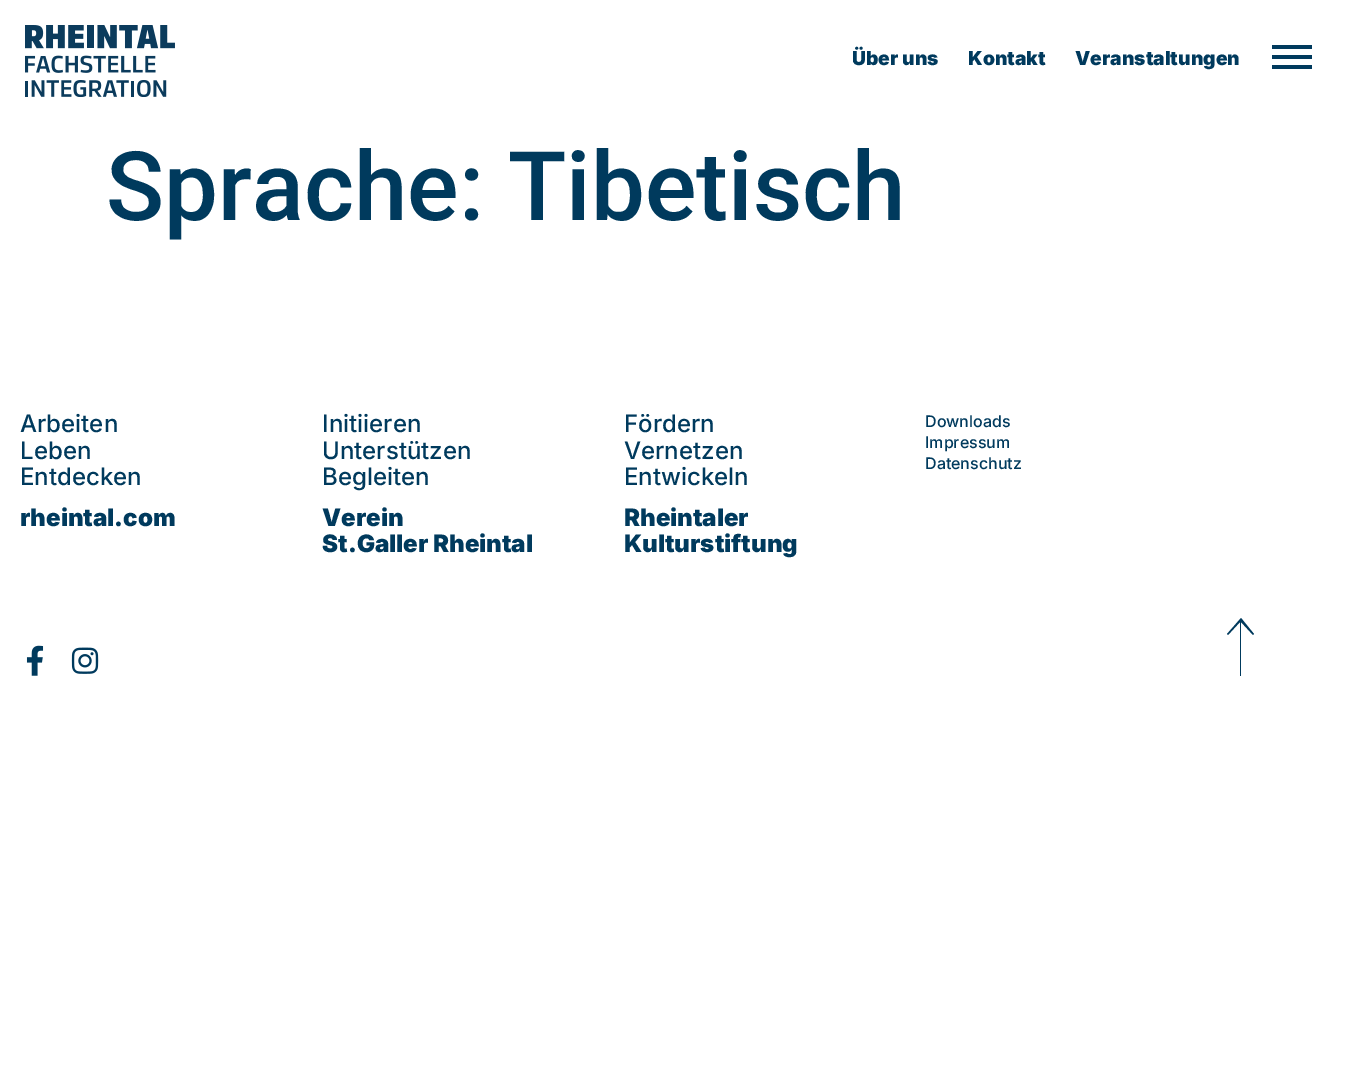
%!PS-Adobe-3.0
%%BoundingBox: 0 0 1352 1084
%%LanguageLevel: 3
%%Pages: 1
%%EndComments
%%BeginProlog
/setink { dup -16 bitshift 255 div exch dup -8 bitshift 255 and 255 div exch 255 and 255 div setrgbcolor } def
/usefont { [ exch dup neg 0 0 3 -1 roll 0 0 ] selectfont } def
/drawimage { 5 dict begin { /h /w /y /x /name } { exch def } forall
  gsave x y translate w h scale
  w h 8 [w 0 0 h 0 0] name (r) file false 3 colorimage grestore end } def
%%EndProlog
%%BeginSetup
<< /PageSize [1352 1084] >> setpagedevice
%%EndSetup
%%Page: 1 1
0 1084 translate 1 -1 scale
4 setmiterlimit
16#FFFFFF setink
0 0 1352 1084 rectfill
(img1.raw) 25 25 150 72 drawimage
/Inter-Black 19.25 usefont
16#003A5D setink
[
    [(Über uns) 852 65]
    [(Kontakt) 968 65]
    [(Veranstaltungen) 1075 65]
] { aload pop moveto show } forall
[
    [1272 45 40 4 16#003A5D]
    [1272 55 40 4 16#003A5D]
    [1272 65 40 4 16#003A5D]
] { aload pop setink rectfill } forall
/Roboto-Medium 96 usefont
106 220 moveto (Sprache: Tibetisch) show
/Inter-Medium 24 usefont
[
    [(Arbeiten) 20 432]
    [(Leben) 20 459]
    [(Entdecken) 20 485]
] { aload pop moveto show } forall
/Inter-Black 24 usefont
20 526 moveto (rheintal.com) show
(img2.raw) 26 645 18 31 drawimage
(img3.raw) 71 647 28 27 drawimage
/Inter-Medium 24 usefont
[
    [(Initiieren) 322 432]
    [(Unterstützen) 322 459]
    [(Begleiten) 322 485]
] { aload pop moveto show } forall
/Inter-Black 24 usefont
322 526 moveto (Verein) show
322 552 moveto (St.Galler Rheintal) show
/Inter-Medium 24 usefont
[
    [(Fördern) 624 432]
    [(Vernetzen) 624 459]
    [(Entwickeln) 624 485]
] { aload pop moveto show } forall
/Inter-Black 24 usefont
624 526 moveto (Rheintaler) show
624 552 moveto (Kulturstiftung) show
/Inter-Medium 16 usefont
[
    [(Downloads) 925 427]
    [(Impressum) 925 448]
    [(Datenschutz) 925 469]
] { aload pop moveto show } forall
1241 622 moveto 1253 635 lineto 1254 634 lineto 1241 618 lineto 1227 634 lineto 1228 635 lineto 1240 622 lineto 1240 676 lineto 1241 676 lineto closepath eofill
showpage
%%EOF
